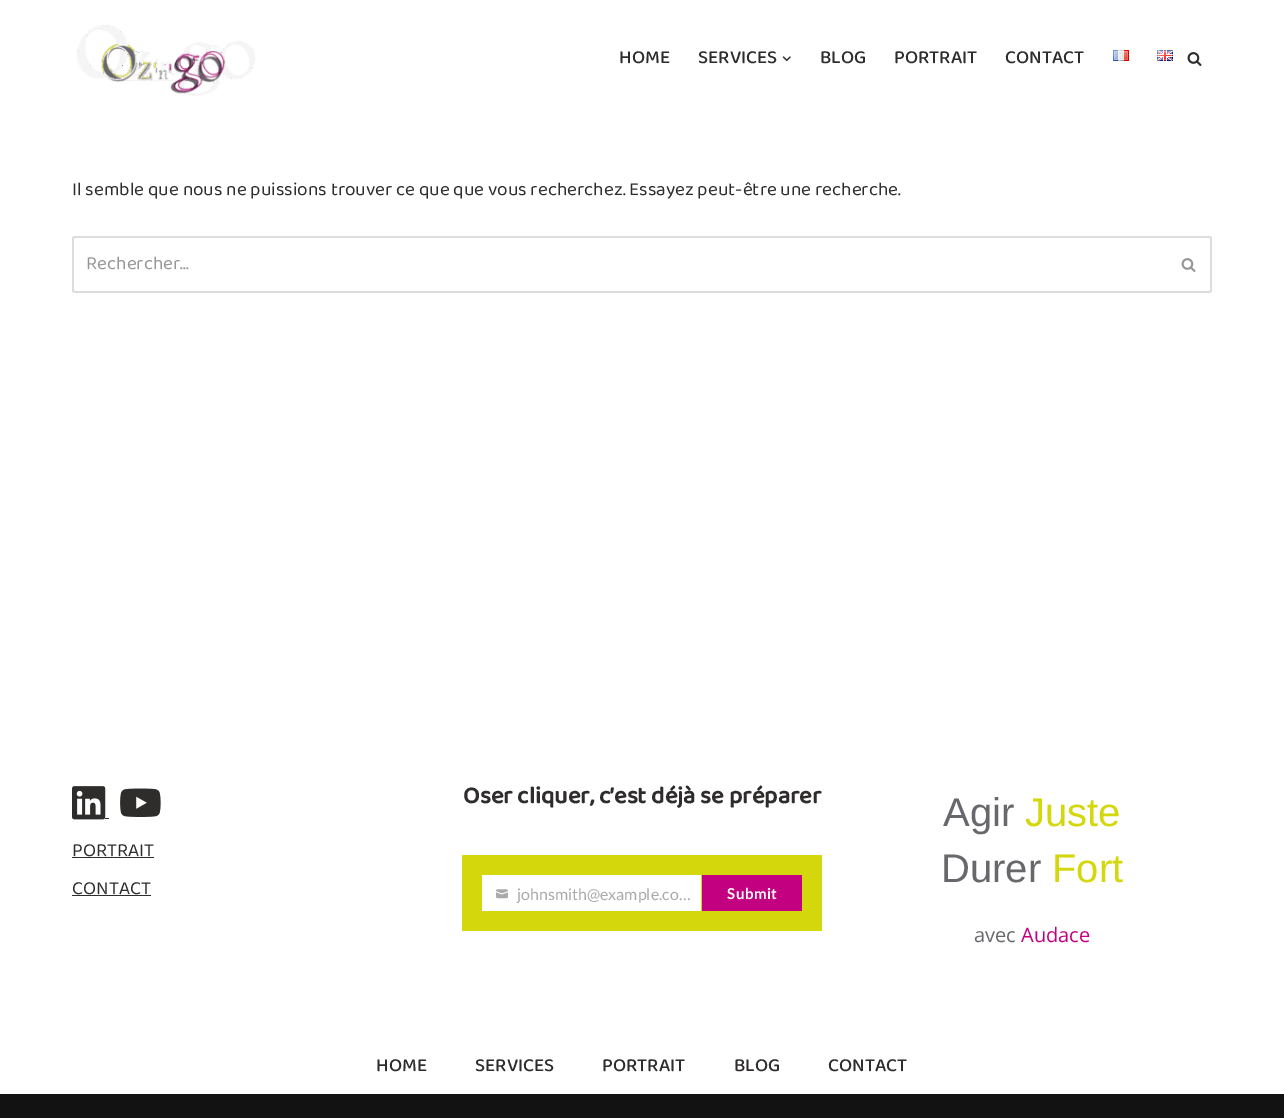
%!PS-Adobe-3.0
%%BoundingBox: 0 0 1284 1118
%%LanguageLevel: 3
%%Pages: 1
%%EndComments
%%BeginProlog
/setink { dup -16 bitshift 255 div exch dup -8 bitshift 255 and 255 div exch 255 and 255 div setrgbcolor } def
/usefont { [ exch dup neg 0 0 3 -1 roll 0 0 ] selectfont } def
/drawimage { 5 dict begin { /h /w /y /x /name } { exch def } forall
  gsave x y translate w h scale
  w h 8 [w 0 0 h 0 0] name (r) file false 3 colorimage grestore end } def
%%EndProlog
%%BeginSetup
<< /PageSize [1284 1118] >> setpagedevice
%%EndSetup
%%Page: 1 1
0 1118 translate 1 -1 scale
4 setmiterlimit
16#FFFFFF setink
0 0 1284 1118 rectfill
(img1.raw) 76 24 180 72 drawimage
/BalooBhaijaan2-Medium 19 usefont
16#2F2C2C setink
619 63 moveto (HOME) show
698 63 moveto (SERVICES) show
(img2.raw) 782 56 9 6 drawimage
[
    [(BLOG) 820 63]
    [(PORTRAIT) 894 63]
    [(CONTACT) 1005 63]
] { aload pop moveto show } forall
(img3.raw) 1113 50 16 11 drawimage
(img4.raw) 1157 50 16 11 drawimage
(img5.raw) 1187 52 15 14 drawimage
/BalooBhaijaan2-Regular 19 usefont
72 195 moveto (Il semble que nous ne puissions trouver ce que que vous recherchez. Essayez peut-être une recherche.) show
16#DDDDDD setink
75 236 moveto 1167 236 lineto 1167 293 lineto 75 293 lineto 73 293 72 292 72 290 curveto 72 239 lineto 72 237 73 236 75 236 curveto closepath 75 238 moveto 1167 238 lineto 1167 291 lineto 75 291 lineto 74 291 74 291 74 290 curveto 74 239 lineto 74 238 74 238 75 238 curveto closepath eofill
16#979696 setink
86 269 moveto (Rechercher...) show
16#DDDDDD setink
1167 236 moveto 1209 236 lineto 1211 236 1212 237 1212 239 curveto 1212 290 lineto 1212 292 1211 293 1209 293 curveto 1167 293 lineto closepath 1167 238 moveto 1209 238 lineto 1210 238 1210 238 1210 239 curveto 1210 290 lineto 1210 291 1210 291 1209 291 curveto 1167 291 lineto closepath eofill
(img6.raw) 1181 258 15 14 drawimage
(img7.raw) 72 786 34 34 drawimage
16#2F2C2C setink
105 818 4 1 rectfill
(img8.raw) 120 788 41 29 drawimage
72 856 moveto (PORTRAIT) show
72 857 82 1 rectfill
72 894 moveto (CONTACT) show
72 895 79 1 rectfill
/BalooBhaijaan2-Bold 24 usefont
463 803 moveto (Oser cliquer, c’est déjà se préparer) show
16#D4D70B setink
462 855 360 76 rectfill
16#FFFFFF setink
482 875 219 36 rectfill
(img9.raw) 496 889 12 10 drawimage
/Lato-Regular 16 usefont
16#AAAAAA setink
517 900 moveto (johnsmith@example.co…) show
16#C30080 setink
702 875 100 36 rectfill
/Lato-Bold 15 usefont
16#FFFFFF setink
727 899 moveto 0.5 0 (Submit) ashow
/LiberationSans-Regular 40 usefont
16#68676B setink
943 826 moveto (Agir) show
16#D4D70B setink
1025 826 moveto (Juste) show
16#68676B setink
941 882 moveto (Durer) show
16#D4D70B setink
1052 882 moveto (Fort) show
/OpenSans-Regular 20 usefont
16#68676B setink
974 942 moveto (avec) show
16#C30080 setink
1021 942 moveto (Audace) show
/BalooBhaijaan2-Medium 19 usefont
16#2F2C2C setink
[
    [(HOME) 376 1071]
    [(SERVICES) 475 1071]
    [(PORTRAIT) 602 1071]
    [(BLOG) 734 1071]
    [(CONTACT) 828 1071]
] { aload pop moveto show } forall
16#121212 setink
0 1094 1284 24 rectfill
showpage
%%EOF
